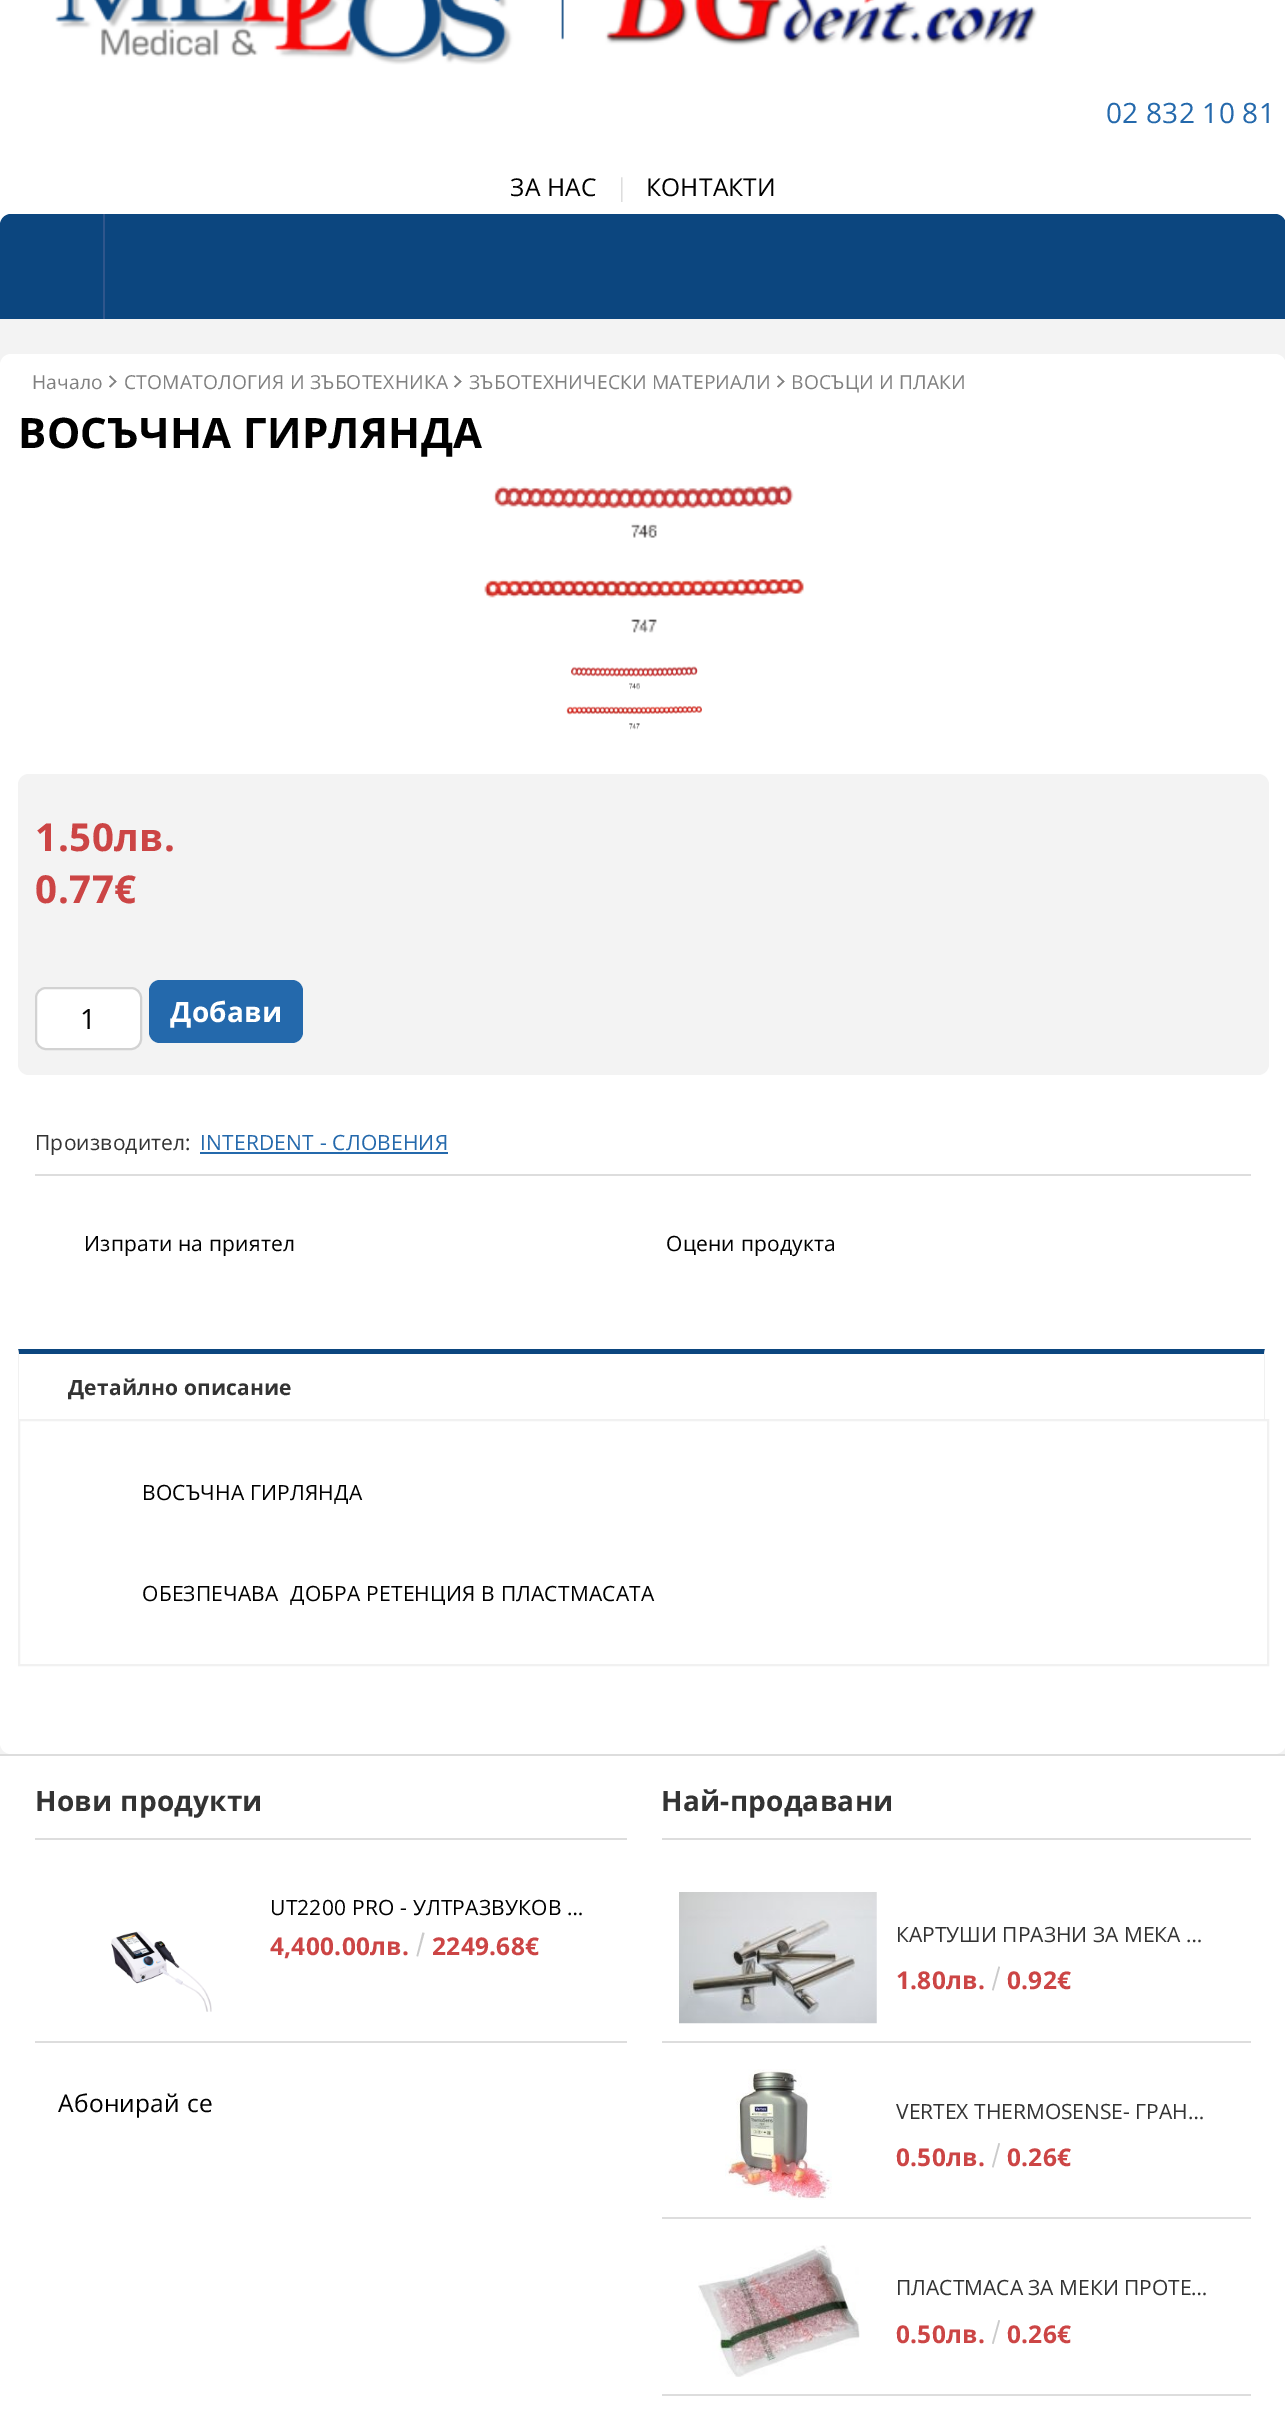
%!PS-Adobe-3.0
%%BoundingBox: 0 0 1285 2431
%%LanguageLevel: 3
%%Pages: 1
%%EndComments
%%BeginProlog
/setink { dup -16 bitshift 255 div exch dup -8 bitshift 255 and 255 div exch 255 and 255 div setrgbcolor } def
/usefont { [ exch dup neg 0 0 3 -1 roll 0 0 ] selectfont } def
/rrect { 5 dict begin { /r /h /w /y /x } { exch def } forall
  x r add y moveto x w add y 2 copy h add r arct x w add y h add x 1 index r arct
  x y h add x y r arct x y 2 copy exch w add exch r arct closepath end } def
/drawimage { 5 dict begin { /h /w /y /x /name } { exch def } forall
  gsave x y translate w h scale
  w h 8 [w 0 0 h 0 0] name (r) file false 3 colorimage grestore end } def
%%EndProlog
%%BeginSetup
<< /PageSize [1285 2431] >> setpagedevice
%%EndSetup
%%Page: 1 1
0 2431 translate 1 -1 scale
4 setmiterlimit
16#F3F3F3 setink
0 0 1285 2431 rectfill
16#FFFFFF setink
0 0 1285 225 rectfill
(img1.raw) 55 0 983 65 drawimage
/OpenSans-Regular 28 usefont
16#2469AC setink
1106 123 moveto 0.25 0 (02 832 10 81) ashow
/OpenSans-Regular 24.5 usefont
16#000000 setink
510 196 moveto 0.25 0 (ЗА НАС) ashow
16#DDDDDD setink
615 196 moveto 0.25 0 (|) ashow
16#000000 setink
646 196 moveto 0.25 0 (КОНТАКТИ) ashow
16#0C467F setink
11 214 moveto 1275 214 lineto 1281 214 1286 219 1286 225 curveto 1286 319 lineto 0 319 lineto 0 225 lineto 0 219 5 214 11 214 curveto closepath fill
16#2F568C setink
103 214 2 105 rectfill
16#FFFFFF setink
0 354 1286 1400 11 rrect fill
/OpenSans-Regular 19.25 usefont
16#808080 setink
32 389 moveto 0.2 0 (Начало) ashow
109 376.5 moveto 110.5 375.5 lineto 116.5 381.5 lineto 115.5 382.5 lineto closepath fill
109 386.5 moveto 115.5 380.5 lineto 116.5 381.5 lineto 110.5 387.5 lineto closepath fill
124 389 moveto 0.2 0 (СТОМАТОЛОГИЯ И ЗЪБОТЕХНИКА) ashow
454 376.5 moveto 455.5 375.5 lineto 461.5 381.5 lineto 460.5 382.5 lineto closepath fill
454 386.5 moveto 460.5 380.5 lineto 461.5 381.5 lineto 455.5 387.5 lineto closepath fill
469 389 moveto 0.2 0 (ЗЪБОТЕХНИЧЕСКИ МАТЕРИАЛИ) ashow
777 376.5 moveto 778.5 375.5 lineto 784.5 381.5 lineto 783.5 382.5 lineto closepath fill
777 386.5 moveto 783.5 380.5 lineto 784.5 381.5 lineto 778.5 387.5 lineto closepath fill
791 389 moveto 0.2 0 (ВОСЪЦИ И ПЛАКИ) ashow
/OpenSans-Bold 42 usefont
16#000000 setink
18 448 moveto 0.4 0 (ВОСЪЧНА ГИРЛЯНДА) ashow
(img2.raw) 484 484 320 149 drawimage
(img3.raw) 566 666 136 64 drawimage
16#F3F3F3 setink
18 774 1251 301 11 rrect fill
/OpenSans-Bold 38.5 usefont
16#CC4545 setink
35 851 moveto 0.5 0 (1.50лв.) ashow
35 903 moveto 0.5 0 (0.77€) ashow
16#FFFFFF setink
36 988 105 61 10 rrect gsave fill grestore
16#D2D2D2 setink
2 setlinewidth
stroke
/OpenSans-Regular 28 usefont
16#000000 setink
80 1029 moveto 0.25 0 (1) ashow
16#2469AC setink
149 980 154 63 11 rrect fill
/OpenSans-Bold 28 usefont
16#FFFFFF setink
170 1022 moveto 0.25 0 (Добави) ashow
16#DDDDDD setink
35 1174 1216 2 rectfill
/OpenSans-Regular 21 usefont
16#333333 setink
35 1150 moveto 0.2 0 (Производител:) ashow
16#2469AC setink
200 1150 moveto 0.2 0 (INTERDENT - СЛОВЕНИЯ) ashow
200 1152 248 2 rectfill
16#000000 setink
84 1251 moveto 0.2 0 (Изпрати на приятел) ashow
666 1251 moveto 0.2 0 (Оцени продукта) ashow
16#0C467F setink
18 1349 moveto 1265 1349 lineto 1264 1354 lineto 19 1354 lineto closepath fill
16#F1F1F1 setink
1265 1349 moveto 1265 1419 lineto 1264 1419 lineto 1264 1354 lineto closepath fill
18 1419 moveto 18 1349 lineto 19 1354 lineto 19 1419 lineto closepath fill
/OpenSans-Bold 21 usefont
16#333333 setink
68 1395 moveto 0.2 0 (Детайлно описание) ashow
16#F1F1F1 setink
19 1420 1249 245 rectstroke
/OpenSans-Regular 21 usefont
16#000000 setink
142 1500 moveto 0.2 0 (ВОСЪЧНА ГИРЛЯНДА) ashow
142 1601 moveto 0.2 0 (ОБЕЗПЕЧАВА  ДОБРА РЕТЕНЦИЯ В ПЛАСТМАСАТА) ashow
[
    [0 1756 1285 675 16#FFFFFF]
    [0 1754 1285 2 16#DDDDDD]
    [35 1838 592 2 16#DDDDDD]
] { aload pop setink rectfill } forall
/OpenSans-Bold 28 usefont
16#333333 setink
35 1811 moveto 0.25 0 (Нови продукти) ashow
16#DDDDDD setink
35 2041 592 2 rectfill
(img4.raw) 111 1931 101 81 drawimage
/OpenSans-Regular 21 usefont
16#000000 setink
270 1915 moveto 0.2 0 (UT2200 PRO - УЛТРАЗВУКОВ …) ashow
/OpenSans-Bold 24.5 usefont
16#CC4545 setink
270 1955 moveto 0.25 0 (4,400.00лв.) ashow
16#CBCBCB setink
422.5 1932.5 moveto 424.5 1933 lineto 418 1956.5 lineto 416.5 1956 lineto closepath fill
16#CC4545 setink
432 1955 moveto 0.25 0 (2249.68€) ashow
/OpenSans-Regular 24.5 usefont
16#000000 setink
58 2112 moveto 0.25 0 (Абонирай се) ashow
16#DDDDDD setink
662 1838 589 2 rectfill
/OpenSans-Bold 28 usefont
16#333333 setink
661 1811 moveto 0.25 0 (Най-продавани) ashow
16#DDDDDD setink
662 2041 589 2 rectfill
(img5.raw) 679 1892 198 132 drawimage
/OpenSans-Regular 21 usefont
16#333333 setink
896 1942 moveto (КАРТУШИ ПРАЗНИ ЗА МЕКА …) show
/OpenSans-Bold 24.5 usefont
16#CC4545 setink
896 1989 moveto 0.25 0 (1.80лв.) ashow
16#CBCBCB setink
998.5 1966.5 moveto 1000 1967 lineto 993.5 1990.5 lineto 992 1990 lineto closepath fill
16#CC4545 setink
1007 1989 moveto 0.25 0 (0.92€) ashow
16#DDDDDD setink
662 2217 589 2 rectfill
(img6.raw) 725 2069 107 131 drawimage
/OpenSans-Regular 21 usefont
16#333333 setink
896 2119 moveto (VERTEX THERMOSENSE- ГРАН…) show
/OpenSans-Bold 24.5 usefont
16#CC4545 setink
896 2166 moveto 0.25 0 (0.50лв.) ashow
16#CBCBCB setink
998.5 2143 moveto 1000 2143.5 lineto 993.5 2167.5 lineto 992 2167 lineto closepath fill
16#CC4545 setink
1007 2166 moveto 0.25 0 (0.26€) ashow
16#DDDDDD setink
662 2394 589 2 rectfill
(img7.raw) 698 2245 162 132 drawimage
/OpenSans-Regular 21 usefont
16#333333 setink
896 2295 moveto (ПЛАСТМАСА ЗА МЕКИ ПРОТЕ…) show
/OpenSans-Bold 24.5 usefont
16#CC4545 setink
896 2343 moveto 0.25 0 (0.50лв.) ashow
16#CBCBCB setink
998.5 2320 moveto 1000 2320.5 lineto 993.5 2344 lineto 992 2343.5 lineto closepath fill
16#CC4545 setink
1007 2343 moveto 0.25 0 (0.26€) ashow
showpage
%%EOF
